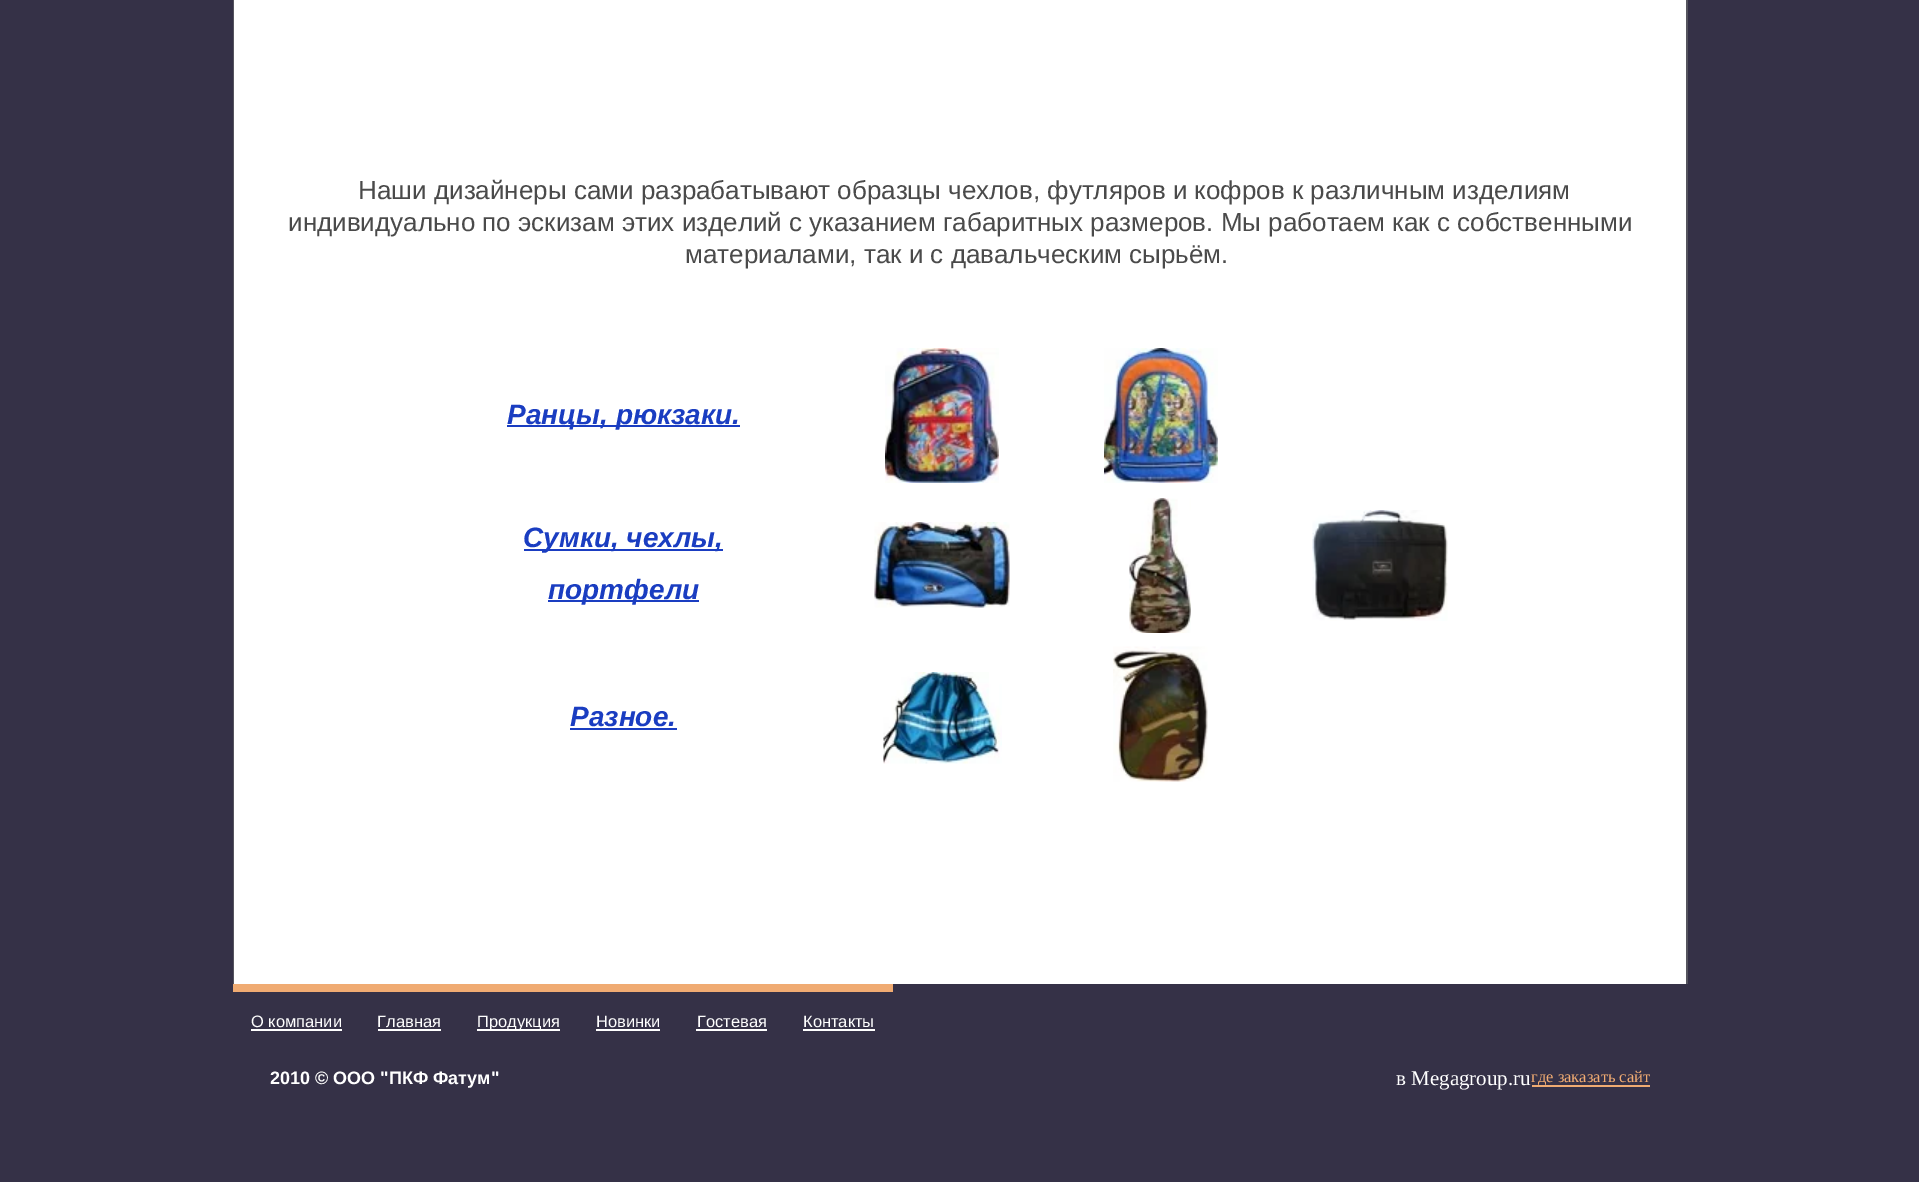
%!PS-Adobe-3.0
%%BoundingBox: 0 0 1919 1182
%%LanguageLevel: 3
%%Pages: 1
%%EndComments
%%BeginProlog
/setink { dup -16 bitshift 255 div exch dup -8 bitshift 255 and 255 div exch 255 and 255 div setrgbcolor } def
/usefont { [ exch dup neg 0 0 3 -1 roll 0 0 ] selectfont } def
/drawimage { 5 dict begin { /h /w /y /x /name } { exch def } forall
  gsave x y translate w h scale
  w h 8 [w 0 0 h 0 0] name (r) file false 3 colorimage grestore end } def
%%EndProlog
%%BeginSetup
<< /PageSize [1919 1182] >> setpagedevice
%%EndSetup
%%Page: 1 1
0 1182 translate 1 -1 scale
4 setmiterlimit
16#353147 setink
0 0 1919 1182 rectfill
[
    [1686 0 2 984 16#55545E]
    [233 0 1 984 16#55545E]
    [234 0 1452 984 16#FFFFFF]
] { aload pop setink rectfill } forall
/LiberationSans-Regular 26 usefont
16#4A4A4A setink
[
    [(Наши дизайнеры сами разрабатывают образцы чехлов, футляров и кофров к различным изделиям) 358 199]
    [(индивидуально по эскизам этих изделий с указанием габаритных размеров. Мы работаем как с собственными) 288 231]
    [(материалами, так и с давальческим сырьём.) 685 263]
] { aload pop moveto show } forall
16#1A3DC1 setink
507 425 233 2 rectfill
/LiberationSans-BoldItalic 28 usefont
507 424 moveto (Ранцы, рюкзаки.) show
(img1.raw) 885 348 114 135 drawimage
(img2.raw) 1104 348 114 135 drawimage
524 549 199 2 rectfill
523 547 moveto (Сумки, чехлы,) show
548 600 151 2 rectfill
548 599 moveto (портфели) show
(img3.raw) 874 522 136 86 drawimage
(img4.raw) 1129 498 62 135 drawimage
(img5.raw) 1312 510 136 111 drawimage
570 726 moveto (Разное.) show
570 728 107 2 rectfill
(img6.raw) 883 672 119 92 drawimage
(img7.raw) 1113 646 95 136 drawimage
16#F0AB72 setink
233 984 660 8 rectfill
/LiberationSans-Regular 16.5 usefont
16#FFFFFF setink
251 1027 moveto (О компании) show
251 1029 91 2 rectfill
377 1027 moveto (Главная) show
378 1029 63 2 rectfill
477 1029 83 2 rectfill
477 1027 moveto (Продукция) show
596 1027 moveto (Новинки) show
596 1029 64 2 rectfill
697 1027 moveto (Гостевая) show
696 1029 71 2 rectfill
803 1027 moveto (Контакты) show
803 1029 72 2 rectfill
/LiberationSans-Bold 18 usefont
270 1084 moveto (2010 © ООО "ПКФ Фатум") show
/LiberationSerif-Regular 21 usefont
1396 1085 moveto (в Megagroup.ru) show
16#F0AB72 setink
1532 1085 118 2 rectfill
/LiberationSerif-Regular 16.5 usefont
1531 1082 moveto (где заказать сайт) show
showpage
%%EOF
